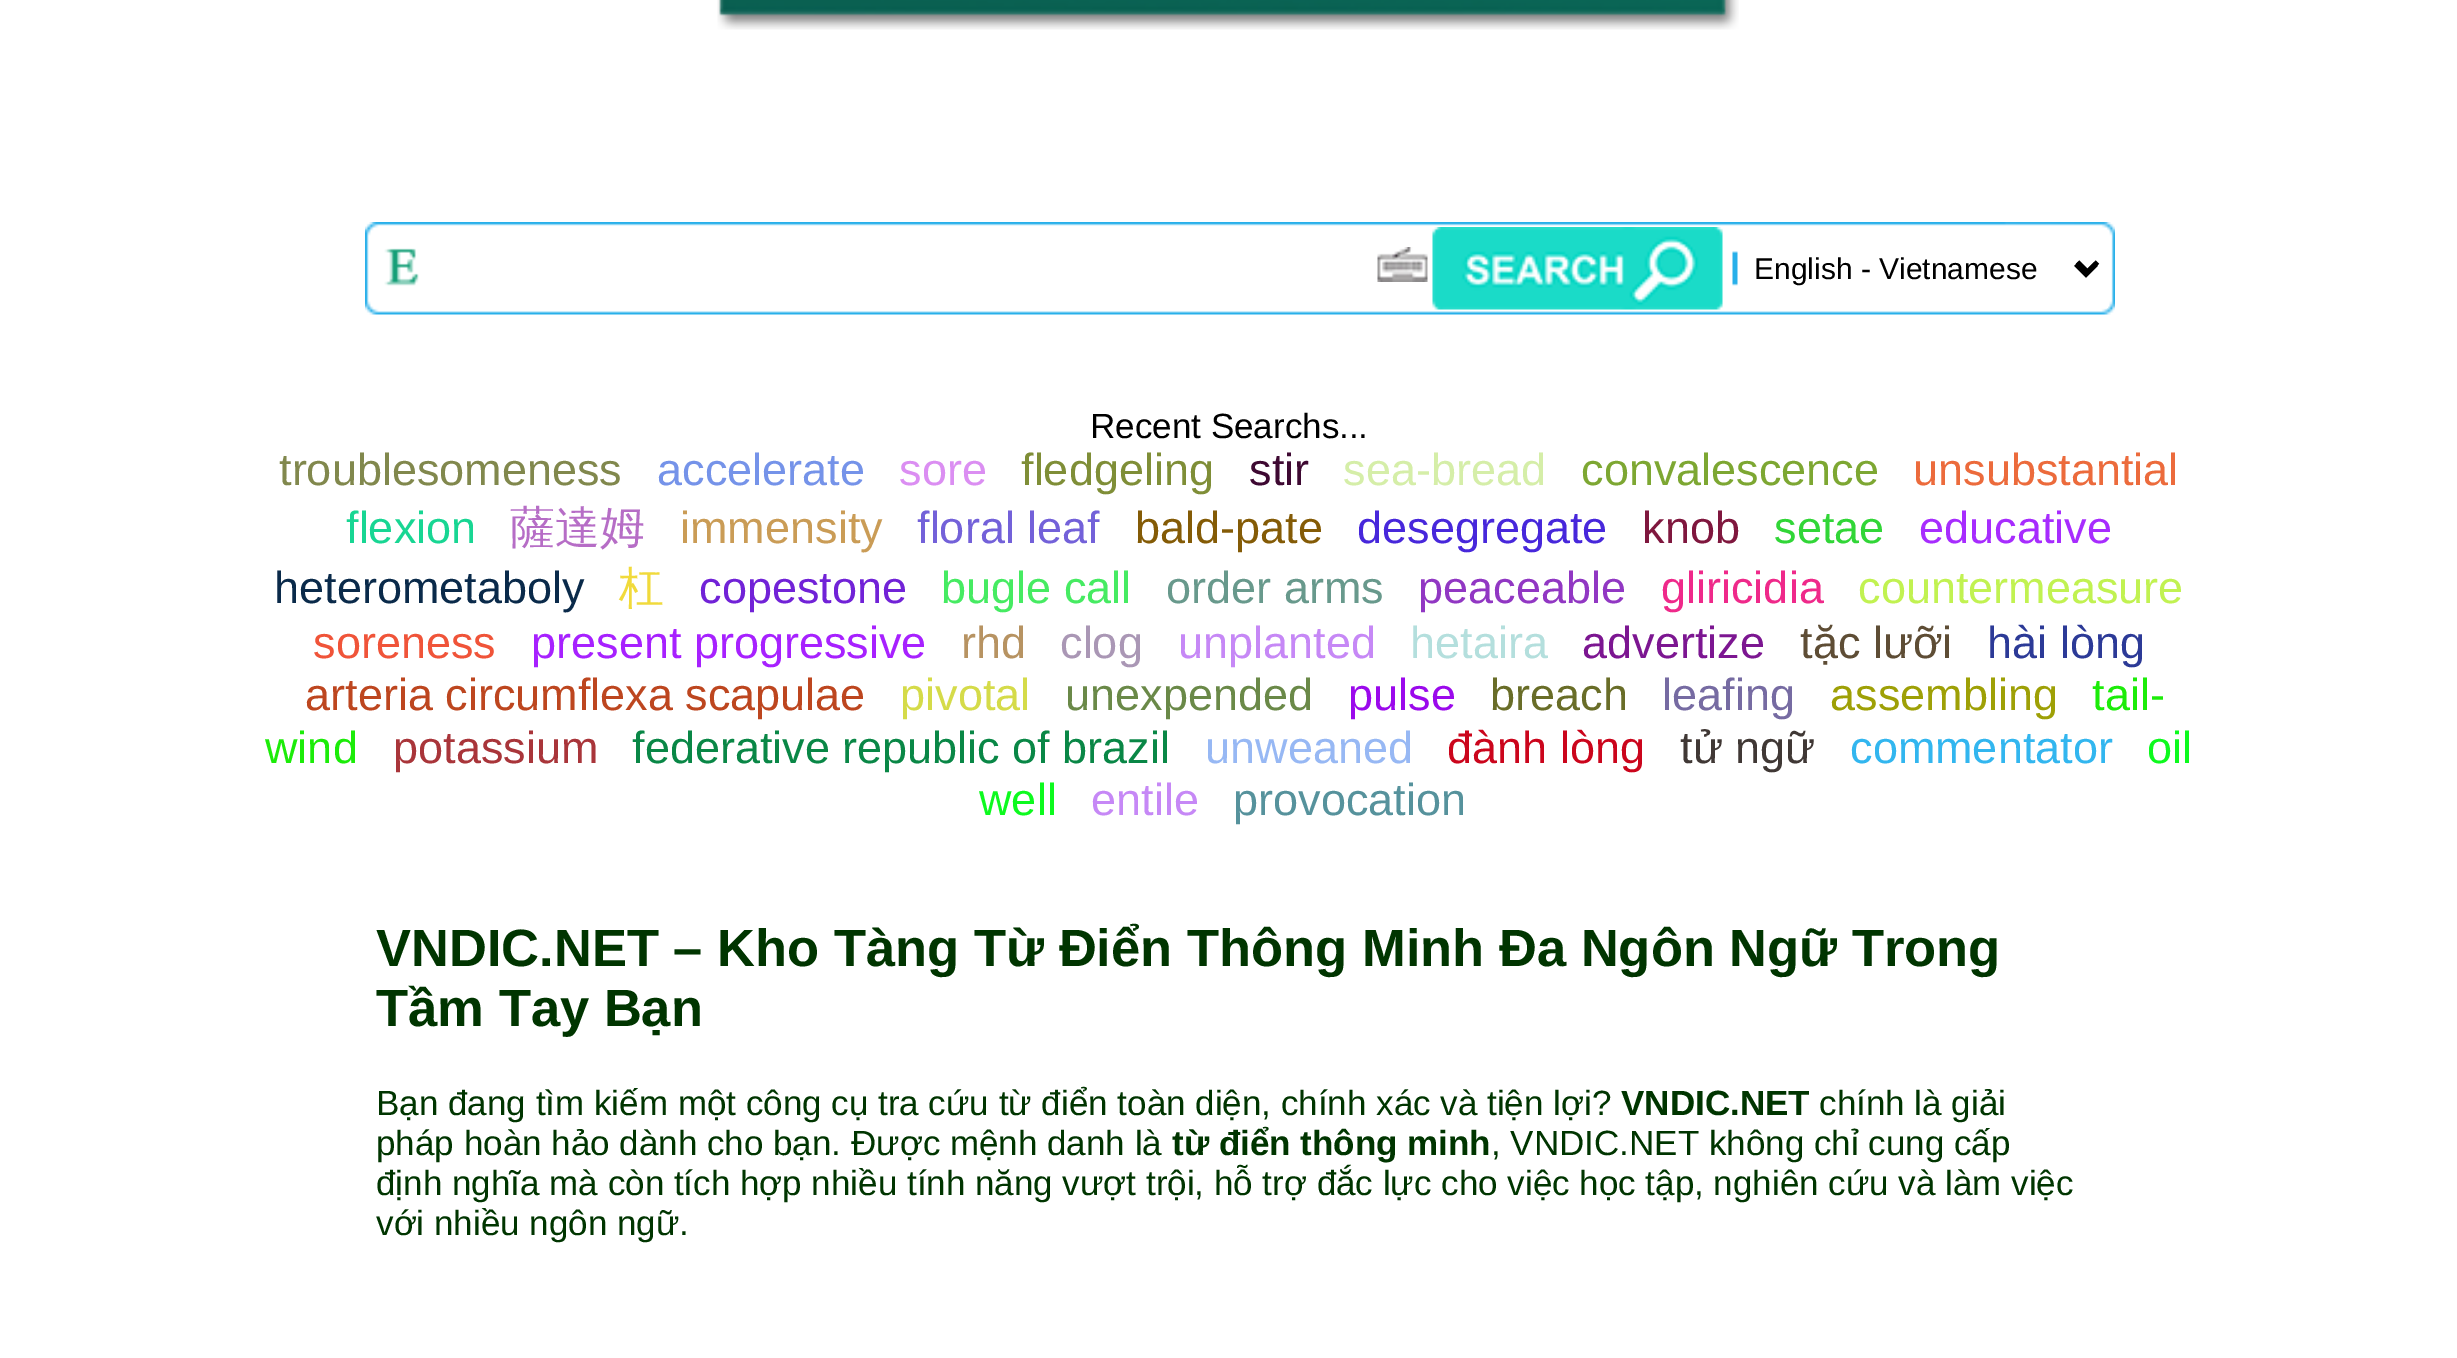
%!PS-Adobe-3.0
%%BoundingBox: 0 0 2457 1358
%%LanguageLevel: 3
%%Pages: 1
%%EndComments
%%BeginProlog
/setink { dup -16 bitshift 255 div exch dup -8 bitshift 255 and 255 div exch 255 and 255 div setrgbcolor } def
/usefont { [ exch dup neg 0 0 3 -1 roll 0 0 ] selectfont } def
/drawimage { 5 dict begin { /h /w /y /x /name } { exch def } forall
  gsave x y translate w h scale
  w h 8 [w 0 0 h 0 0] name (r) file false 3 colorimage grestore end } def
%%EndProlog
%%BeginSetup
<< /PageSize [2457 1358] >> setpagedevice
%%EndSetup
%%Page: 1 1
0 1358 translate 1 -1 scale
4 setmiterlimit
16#FFFFFF setink
0 0 2457 1358 rectfill
(img1.raw) 717 0 1022 30 drawimage
(img2.raw) 365 222 1750 93 drawimage
(img3.raw) 384 248 35 38 drawimage
(img4.raw) 1377 247 51 35 drawimage
(img5.raw) 1432 227 291 83 drawimage
2106 230 2 78 rectfill
(img6.raw) 1732 251 368 35 drawimage
16#000000 setink
5 setlinewidth
2076 264 moveto 2086 274 lineto 2096 264 lineto stroke
/LiberationSans-Regular 30 usefont
1754 279 moveto (English - Vietnamese) show
/LiberationSans-Regular 35 usefont
1090 438 moveto (Recent Searchs...) show
/LiberationSans-Regular 45 usefont
16#81884D setink
279 485 moveto (troublesomeness) show
16#7593E9 setink
657 485 moveto (accelerate) show
16#DB8EF2 setink
899 485 moveto (sore) show
16#7F8E37 setink
1021 485 moveto (fledgeling) show
16#3E0932 setink
1249 485 moveto (stir) show
16#D5EEA8 setink
1343 485 moveto (sea-bread) show
16#7DA732 setink
1581 485 moveto (convalescence) show
16#EC6B3C setink
1913 485 moveto (unsubstantial) show
16#18D693 setink
346 543 moveto (flexion) show
/WenQuanYiZenHei-Medium 45 usefont
16#B66DC6 setink
510 543 moveto (薩達姆) show
/LiberationSans-Regular 45 usefont
16#CA9C56 setink
680 543 moveto (immensity) show
16#7361D9 setink
917 543 moveto (floral leaf) show
16#845B06 setink
1135 543 moveto (bald-pate) show
16#4727DB setink
1357 543 moveto (desegregate) show
16#7F173E setink
1642 543 moveto (knob) show
16#31D637 setink
1774 543 moveto (setae) show
16#A72CFE setink
1919 543 moveto (educative) show
16#0A2A4A setink
274 603 moveto (heterometaboly) show
/WenQuanYiZenHei-Medium 45 usefont
16#F1DA3B setink
619 603 moveto (杠) show
/LiberationSans-Regular 45 usefont
16#7122D7 setink
699 603 moveto (copestone) show
16#46EB62 setink
941 603 moveto (bugle call) show
16#68998C setink
1166 603 moveto (order arms) show
16#9137C3 setink
1418 603 moveto (peaceable) show
16#EF298A setink
1661 603 moveto (gliricidia) show
16#C1F251 setink
1858 603 moveto (countermeasure) show
16#F05439 setink
313 658 moveto (soreness) show
16#A721FF setink
531 658 moveto (present progressive) show
16#B79362 setink
961 658 moveto (rhd) show
16#AA97B5 setink
1060 658 moveto (clog) show
16#C688F6 setink
1178 658 moveto (unplanted) show
16#B4DFDD setink
1410 658 moveto (hetaira) show
16#7C1691 setink
1582 658 moveto (advertize) show
16#5E4D35 setink
1800 658 moveto (tặc lưỡi) show
16#2C3A97 setink
1987 658 moveto (hài lòng) show
16#BD461F setink
305 710 moveto (arteria circumflexa scapulae) show
16#D5DB49 setink
900 710 moveto (pivotal) show
16#6A8948 setink
1065 710 moveto (unexpended) show
16#9B09EC setink
1348 710 moveto (pulse) show
16#696D28 setink
1490 710 moveto (breach) show
16#766BA2 setink
1662 710 moveto (leafing) show
16#9EA006 setink
1830 710 moveto (assembling) show
16#1CEC09 setink
2092 710 moveto (tail-) show
265 763 moveto (wind) show
16#A9353A setink
393 763 moveto (potassium) show
16#098746 setink
632 763 moveto (federative republic of brazil) show
16#97B8F4 setink
1205 763 moveto (unweaned) show
16#CB051C setink
1447 763 moveto (đành lòng) show
16#403835 setink
1680 763 moveto (tử ngữ) show
16#32B6EF setink
1850 763 moveto (commentator) show
16#0DFA1E setink
2147 763 moveto (oil) show
979 815 moveto (well) show
16#C688F6 setink
1091 815 moveto (entile) show
16#56929C setink
1233 815 moveto (provocation) show
/LiberationSans-Bold 52.5 usefont
16#003500 setink
376 966 moveto (VNDIC.NET – Kho Tàng Từ Điển Thông Minh Đa Ngôn Ngữ Trong) show
376 1026 moveto (Tầm Tay Bạn) show
/LiberationSans-Regular 35 usefont
376 1115 moveto (Bạn đang tìm kiếm một công cụ tra cứu từ điển toàn diện, chính xác và tiện lợi?) show
/LiberationSans-Bold 35 usefont
1621 1115 moveto (VNDIC.NET) show
/LiberationSans-Regular 35 usefont
1819 1115 moveto (chính là giải) show
376 1155 moveto (pháp hoàn hảo dành cho bạn. Được mệnh danh là) show
/LiberationSans-Bold 35 usefont
1172 1155 moveto (từ điển thông minh) show
/LiberationSans-Regular 35 usefont
[
    [(, VNDIC.NET không chỉ cung cấp) 1491 1155]
    [(định nghĩa mà còn tích hợp nhiều tính năng vượt trội, hỗ trợ đắc lực cho việc học tập, nghiên cứu và làm việc) 376 1195]
    [(với nhiều ngôn ngữ.) 376 1235]
] { aload pop moveto show } forall
showpage
%%EOF
